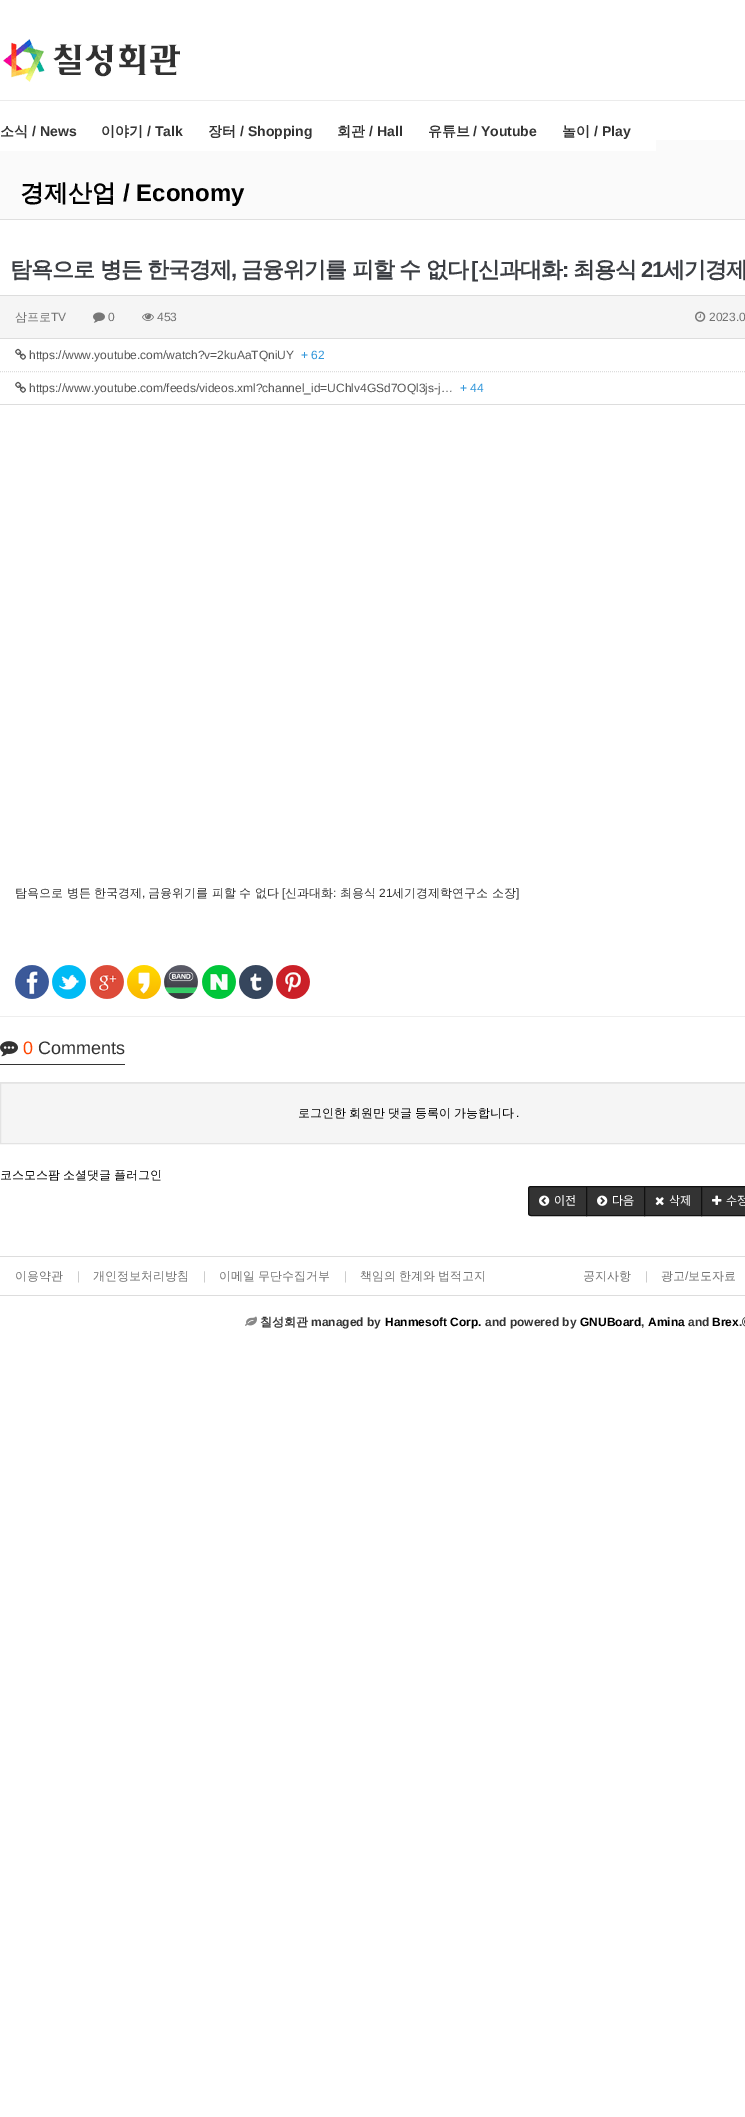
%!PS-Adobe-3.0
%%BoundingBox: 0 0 745 2117
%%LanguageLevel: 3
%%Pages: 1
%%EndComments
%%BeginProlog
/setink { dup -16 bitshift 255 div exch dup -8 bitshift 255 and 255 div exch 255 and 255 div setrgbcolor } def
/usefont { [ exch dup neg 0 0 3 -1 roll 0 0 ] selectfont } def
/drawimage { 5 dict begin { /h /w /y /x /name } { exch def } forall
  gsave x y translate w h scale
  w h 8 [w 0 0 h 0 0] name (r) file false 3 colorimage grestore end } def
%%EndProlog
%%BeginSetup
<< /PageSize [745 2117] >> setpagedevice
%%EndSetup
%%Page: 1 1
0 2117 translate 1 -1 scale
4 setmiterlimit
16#FFFFFF setink
0 0 745 2117 rectfill
(img1.raw) 3 39 177 43 drawimage
[
    [0 100 745 1 16#EBEBEB]
    [0 140 745 79 16#FAFAFA]
    [0 140 656 11 16#FFFFFF]
] { aload pop setink rectfill } forall
/WenQuanYiZenHei-Bold 14 usefont
16#333333 setink
0 136 moveto (소식) show
/LiberationSans-Bold 14 usefont
32 136 moveto (/ News) show
/WenQuanYiZenHei-Bold 14 usefont
101 136 moveto (이야기) show
/LiberationSans-Bold 14 usefont
147 136 moveto (/ Talk) show
/WenQuanYiZenHei-Bold 14 usefont
208 136 moveto (장터) show
/LiberationSans-Bold 14 usefont
240 136 moveto (/ Shopping) show
/WenQuanYiZenHei-Bold 14 usefont
337 136 moveto (회관) show
/LiberationSans-Bold 14 usefont
369 136 moveto (/ Hall) show
/WenQuanYiZenHei-Bold 14 usefont
428 136 moveto (유튜브) show
/LiberationSans-Bold 14 usefont
473 136 moveto (/ Youtube) show
/WenQuanYiZenHei-Bold 14 usefont
562 136 moveto (놀이) show
/LiberationSans-Bold 14 usefont
594 136 moveto (/ Play) show
16#DFDFDF setink
0 219 745 1 rectfill
/WenQuanYiZenHei-Bold 24 usefont
16#000000 setink
20 201 moveto (경제산업) show
/LiberationSans-Bold 24 usefont
123 201 moveto (/ Economy) show
/WenQuanYiZenHei-Bold 22 usefont
16#3B3E43 setink
10 277 moveto -1 0 (탐욕으로 병든 한국경제) ashow
/LiberationSans-Bold 22 usefont
231 277 moveto -1 0 (,) ashow
/WenQuanYiZenHei-Bold 22 usefont
241 277 moveto -1 0 (금융위기를 피할 수 없다) ashow
/LiberationSans-Bold 22 usefont
471 277 moveto -1 0 ([) ashow
/WenQuanYiZenHei-Bold 22 usefont
478 277 moveto -1 0 (신과대화) ashow
/LiberationSans-Bold 22 usefont
562 277 moveto -1 0 (:) ashow
/WenQuanYiZenHei-Bold 22 usefont
573 277 moveto -1 0 (최용식) ashow
/LiberationSans-Bold 22 usefont
641 277 moveto -1 0 (21) ashow
/WenQuanYiZenHei-Bold 22 usefont
663 277 moveto -1 0 (세기경제) ashow
[
    [0 295 745 1 16#DDDDDD]
    [0 404 745 1 16#DDDDDD]
    [0 296 745 42 16#F5F5F5]
    [0 338 745 1 16#DDDDDD]
] { aload pop setink rectfill } forall
/WenQuanYiZenHei-Medium 12 usefont
16#727272 setink
15 321 moveto (삼프로) show
/LiberationSans-Regular 12 usefont
51 321 moveto (TV) show
(img2.raw) 93 312 12 11 drawimage
108 321 moveto (0) show
(img3.raw) 142 313 12 8 drawimage
157 321 moveto (453) show
(img4.raw) 695 311 11 11 drawimage
709 321 moveto (2023.0) show
(img5.raw) 15 348 11 12 drawimage
16#555555 setink
29 359 moveto (https://www.youtube.com/watch?v=2kuAaTQniUY) show
16#3498DB setink
301 359 moveto (+ 62) show
16#DDDDDD setink
[1 1] 0 setdash
0 371.5 moveto 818 371.5 lineto stroke
(img5.raw) 15 381 11 12 drawimage
16#555555 setink
29 392 moveto (https://www.youtube.com/feeds/videos.xml?channel_id=UChlv4GSd7OQl3js-j…) show
16#3498DB setink
460 392 moveto (+ 44) show
/WenQuanYiZenHei-Medium 12 usefont
16#333333 setink
15 897 moveto (탐욕으로 병든 한국경제) show
/LiberationSans-Regular 12 usefont
142 897 moveto (,) show
/WenQuanYiZenHei-Medium 12 usefont
148 897 moveto (금융위기를 피할 수 없다) show
/LiberationSans-Regular 12 usefont
282 897 moveto ([) show
/WenQuanYiZenHei-Medium 12 usefont
285 897 moveto (신과대화) show
/LiberationSans-Regular 12 usefont
333 897 moveto (:) show
/WenQuanYiZenHei-Medium 12 usefont
340 897 moveto (최용식) show
/LiberationSans-Regular 12 usefont
379 897 moveto (21) show
/WenQuanYiZenHei-Medium 12 usefont
392 897 moveto (세기경제학연구소 소장) show
/LiberationSans-Regular 12 usefont
516 897 moveto (]) show
(img6.raw) 15 965 34 34 drawimage
(img7.raw) 52 965 34 34 drawimage
(img8.raw) 90 965 34 34 drawimage
(img9.raw) 127 965 34 34 drawimage
(img10.raw) 164 965 34 34 drawimage
(img11.raw) 202 965 34 34 drawimage
(img12.raw) 239 965 34 34 drawimage
(img13.raw) 276 965 34 34 drawimage
16#EEEEEE setink
0 1016 745 1 rectfill
16#333333 setink
0 1064 125 1 rectfill
(img14.raw) 0 1041 18 16 drawimage
/LiberationSans-Regular 18 usefont
16#FF4500 setink
23 1054 moveto (0) show
16#333333 setink
38 1054 moveto (Comments) show
16#F5F5F5 setink
1 1084 744 59 rectfill
16#E9E9E9 setink
1 1083 744 1 rectfill
16#E3E3E3 setink
[] 0 setdash
0.5 1082.5 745 61 rectstroke
/WenQuanYiZenHei-Medium 12 usefont
16#000000 setink
298 1117 moveto -0.5 0 32 (로그인한 회원만 댓글 등록이 가능합니다) widthshow
/LiberationSans-Regular 12 usefont
516 1117 moveto (.) show
/WenQuanYiZenHei-Medium 12 usefont
0 1179 moveto -0.5 0 32 (코스모스팜 소셜댓글 플러그인) widthshow
16#333333 setink
531 1186.5 moveto 586.5 1186.5 lineto 586.5 1215.5 lineto 531 1215.5 lineto 529.5 1215.5 528.5 1214.5 528.5 1213 curveto 528.5 1189 lineto 528.5 1187.5 529.5 1186.5 531 1186.5 curveto closepath gsave fill grestore
16#111111 setink
stroke
(img15.raw) 539 1195 11 11 drawimage
/NotoSansKR-Regular 12 usefont
16#FFFFFF setink
554 1205 moveto (이전) show
16#333333 setink
586.5 1186.5 moveto 644.5 1186.5 lineto 644.5 1215.5 lineto 586.5 1215.5 lineto closepath gsave fill grestore
16#111111 setink
stroke
(img16.raw) 597 1195 11 11 drawimage
16#FFFFFF setink
612 1205 moveto (다음) show
16#333333 setink
644.5 1186.5 moveto 701.5 1186.5 lineto 701.5 1215.5 lineto 644.5 1215.5 lineto closepath gsave fill grestore
16#111111 setink
stroke
(img17.raw) 655 1197 9 9 drawimage
16#FFFFFF setink
669 1205 moveto (삭제) show
16#333333 setink
701.5 1186.5 moveto 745.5 1186.5 lineto 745.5 1215.5 lineto 701.5 1215.5 lineto closepath gsave fill grestore
16#111111 setink
stroke
(img18.raw) 712 1195 10 10 drawimage
16#FFFFFF setink
726 1205 moveto (수정) show
16#DDDDDD setink
0 1256 745 1 rectfill
0 1295 745 1 rectfill
/WenQuanYiZenHei-Medium 12 usefont
16#727272 setink
15 1280 moveto (이용약관) show
/LiberationSans-Regular 12 usefont
16#CCCCCC setink
77 1280 moveto (|) show
/WenQuanYiZenHei-Medium 12 usefont
16#727272 setink
93 1280 moveto (개인정보처리방침) show
/LiberationSans-Regular 12 usefont
16#CCCCCC setink
203 1280 moveto (|) show
/WenQuanYiZenHei-Medium 12 usefont
16#727272 setink
219 1280 moveto -0.5 0 32 (이메일 무단수집거부) widthshow
/LiberationSans-Regular 12 usefont
16#CCCCCC setink
344 1280 moveto (|) show
/WenQuanYiZenHei-Medium 12 usefont
16#727272 setink
360 1280 moveto -0.5 0 32 (책임의 한계와 법적고지) widthshow
583 1280 moveto (공지사항) show
/LiberationSans-Regular 12 usefont
16#CCCCCC setink
645 1280 moveto (|) show
/WenQuanYiZenHei-Medium 12 usefont
16#727272 setink
661 1280 moveto (광고) show
/LiberationSans-Regular 12 usefont
685 1280 moveto (/) show
/WenQuanYiZenHei-Medium 12 usefont
688 1280 moveto -0.5 0 32 (보도자료) widthshow
(img19.raw) 245 1316 12 10 drawimage
/WenQuanYiZenHei-Bold 12 usefont
16#333333 setink
260 1326 moveto (칠성회관) show
/LiberationSans-Bold 12 usefont
311 1326 moveto (managed by) show
16#000000 setink
385 1326 moveto (Hanmesoft Corp.) show
16#333333 setink
485 1326 moveto (and powered by) show
16#000000 setink
580 1326 moveto (GNUBoard) show
16#333333 setink
641 1326 moveto (,) show
16#000000 setink
648 1326 moveto (Amina) show
16#333333 setink
688 1326 moveto (and) show
16#000000 setink
712 1326 moveto (Brex) show
16#333333 setink
739 1326 moveto (.) show
(img20.raw) 742 1317 3 10 drawimage
showpage
%%EOF
